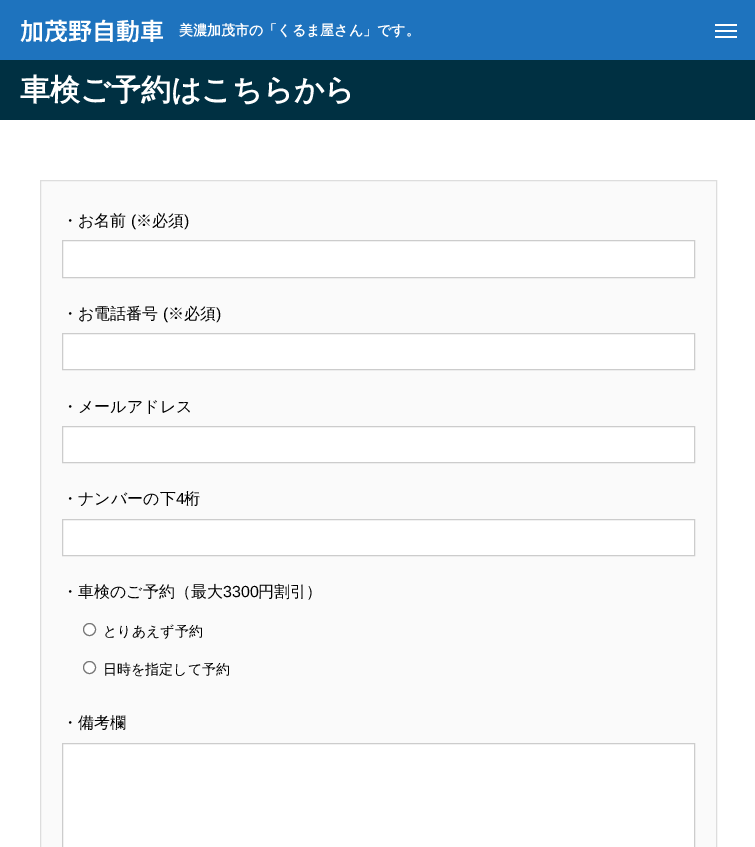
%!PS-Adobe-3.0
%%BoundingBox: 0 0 755 847
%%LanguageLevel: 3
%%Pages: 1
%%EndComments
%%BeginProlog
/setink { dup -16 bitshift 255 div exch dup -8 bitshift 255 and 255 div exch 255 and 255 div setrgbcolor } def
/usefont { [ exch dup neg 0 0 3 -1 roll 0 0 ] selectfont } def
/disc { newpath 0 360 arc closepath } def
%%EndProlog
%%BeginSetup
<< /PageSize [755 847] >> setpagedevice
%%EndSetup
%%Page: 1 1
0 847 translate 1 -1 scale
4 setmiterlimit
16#FFFFFF setink
0 0 755 847 rectfill
16#1E73BE setink
0 0 755 60 rectfill
/NotoSansJP-SemiBold 24 usefont
16#FFFFFF setink
20 40 moveto (加茂野自動車) show
/WenQuanYiZenHei-Bold 14 usefont
179 35 moveto (美濃加茂市の「くるま屋さん」です。) show
[
    [715 24 22 2 16#FFFFFF]
    [715 30 22 2 16#FFFFFF]
    [715 36 22 2 16#FFFFFF]
    [0 60 755 60 16#003042]
] { aload pop setink rectfill } forall
/WenQuanYiZenHei-Bold 30 usefont
16#FFFFFF setink
20 100 moveto (車検ご予約はこちらから) show
16#FAFAFA setink
40.5 180.5 moveto 716.5 180.5 lineto 716.5 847.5 lineto 40.5 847.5 lineto closepath gsave fill grestore
16#DDDDDD setink
stroke
/WenQuanYiZenHei-Medium 16 usefont
16#000000 setink
62 226 moveto (・お名前) show
/LiberationSans-Regular 16 usefont
131 226 moveto (\() show
/WenQuanYiZenHei-Medium 16 usefont
136 226 moveto (※必須) show
/LiberationSans-Regular 16 usefont
184 226 moveto (\)) show
16#FFFFFF setink
62.5 240.5 moveto 694.5 240.5 lineto 694.5 277.5 lineto 62.5 277.5 lineto closepath gsave fill grestore
16#CCCCCC setink
stroke
/WenQuanYiZenHei-Medium 16 usefont
16#000000 setink
62 319 moveto (・お電話番号) show
/LiberationSans-Regular 16 usefont
163 319 moveto (\() show
/WenQuanYiZenHei-Medium 16 usefont
168 319 moveto (※必須) show
/LiberationSans-Regular 16 usefont
216 319 moveto (\)) show
16#FFFFFF setink
62.5 333.5 moveto 694.5 333.5 lineto 694.5 369.5 lineto 62.5 369.5 lineto closepath gsave fill grestore
16#CCCCCC setink
stroke
/WenQuanYiZenHei-Medium 16 usefont
16#000000 setink
62 412 moveto (・メールアドレス) show
16#FFFFFF setink
62.5 426.5 moveto 694.5 426.5 lineto 694.5 462.5 lineto 62.5 462.5 lineto closepath gsave fill grestore
16#CCCCCC setink
stroke
16#000000 setink
62 504 moveto (・ナンバーの下) show
/LiberationSans-Regular 16 usefont
176 504 moveto (4) show
/WenQuanYiZenHei-Medium 16 usefont
184 504 moveto (桁) show
16#FFFFFF setink
62.5 519.5 moveto 694.5 519.5 lineto 694.5 555.5 lineto 62.5 555.5 lineto closepath gsave fill grestore
16#CCCCCC setink
stroke
16#000000 setink
62 597 moveto (・車検のご予約（最大) show
/LiberationSans-Regular 16 usefont
223 597 moveto (3300) show
/WenQuanYiZenHei-Medium 16 usefont
258 597 moveto (円割引）) show
16#FFFFFF setink
89.5 629.5 6 disc gsave fill grestore
16#767676 setink
stroke
/WenQuanYiZenHei-Medium 14 usefont
16#000000 setink
103 636 moveto (とりあえず予約) show
16#FFFFFF setink
89.5 667.5 6 disc gsave fill grestore
16#767676 setink
stroke
16#000000 setink
103 674 moveto (日時を指定して予約) show
/WenQuanYiZenHei-Medium 16 usefont
62 728 moveto (・備考欄) show
16#FFFFFF setink
62.5 743.5 moveto 694.5 743.5 lineto 694.5 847.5 lineto 62.5 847.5 lineto closepath gsave fill grestore
16#CCCCCC setink
stroke
showpage
%%EOF
